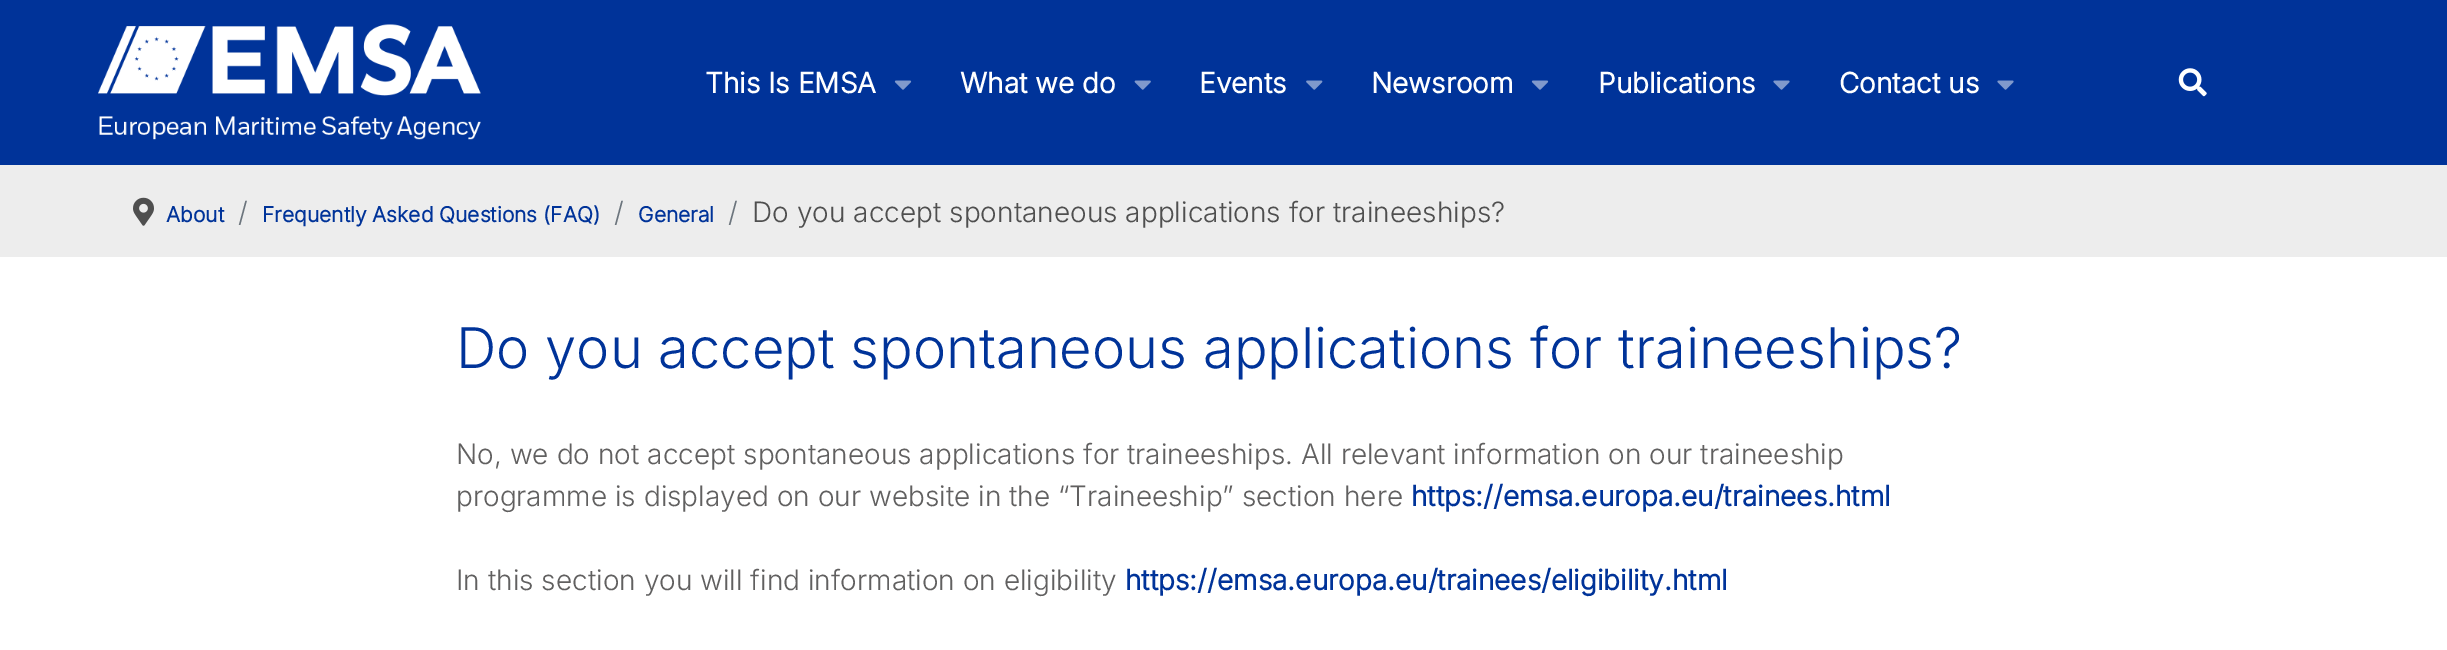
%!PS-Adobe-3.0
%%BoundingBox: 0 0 2447 650
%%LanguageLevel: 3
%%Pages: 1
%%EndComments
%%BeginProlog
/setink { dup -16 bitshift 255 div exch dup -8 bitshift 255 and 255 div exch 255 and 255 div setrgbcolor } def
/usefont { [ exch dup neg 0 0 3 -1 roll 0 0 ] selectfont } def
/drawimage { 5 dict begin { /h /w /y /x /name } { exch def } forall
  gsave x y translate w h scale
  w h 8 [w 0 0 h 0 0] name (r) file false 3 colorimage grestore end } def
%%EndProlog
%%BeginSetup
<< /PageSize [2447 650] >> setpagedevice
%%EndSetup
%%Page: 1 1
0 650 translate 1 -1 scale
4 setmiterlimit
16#FFFFFF setink
0 0 2447 650 rectfill
16#003399 setink
0 0 2447 165 rectfill
(img1.raw) 98 24 383 116 drawimage
/Inter-Bold 28 usefont
16#FFFFFF setink
705 93 moveto (This Is EMSA) show
(img2.raw) 894 80 18 10 drawimage
960 93 moveto (What we do) show
(img3.raw) 1134 80 17 10 drawimage
1199 93 moveto (Events) show
(img4.raw) 1306 80 17 10 drawimage
1371 93 moveto (Newsroom) show
(img2.raw) 1531 80 18 10 drawimage
1598 93 moveto (Publications) show
(img5.raw) 1773 80 17 10 drawimage
1839 93 moveto (Contact us) show
(img5.raw) 1997 80 17 10 drawimage
(img6.raw) 2178 68 29 29 drawimage
16#EDEDED setink
0 165 2447 92 rectfill
(img7.raw) 133 197 21 29 drawimage
/Inter-Bold 21 usefont
16#003399 setink
166 222 moveto (About) show
/Inter-Light 28 usefont
16#6C757D setink
238 222 moveto (/) show
/Inter-Bold 21 usefont
16#003399 setink
262 222 moveto (Frequently Asked Questions \(FAQ\)) show
/Inter-Light 28 usefont
16#6C757D setink
614 222 moveto (/) show
/Inter-Bold 21 usefont
16#003399 setink
638 222 moveto (General) show
/Inter-Light 28 usefont
16#6C757D setink
728 222 moveto (/) show
16#4F4F4F setink
752 222 moveto (Do you accept spontaneous applications for traineeships?) show
/Inter-Light 56 usefont
16#003399 setink
456 368 moveto (Do you accept spontaneous applications for traineeships?) show
/Inter-Light 28 usefont
16#616060 setink
456 464 moveto (No, we do not accept spontaneous applications for traineeships. All relevant information on our traineeship) show
456 506 moveto (programme is displayed on our website in the “Traineeship” section here) show
/Inter-Bold 28 usefont
16#003399 setink
1411 506 moveto (https://emsa.europa.eu/trainees.html) show
/Inter-Light 28 usefont
16#616060 setink
456 590 moveto (In this section you will find information on eligibility) show
/Inter-Bold 28 usefont
16#003399 setink
1125 590 moveto (https://emsa.europa.eu/trainees/eligibility.html) show
showpage
%%EOF
